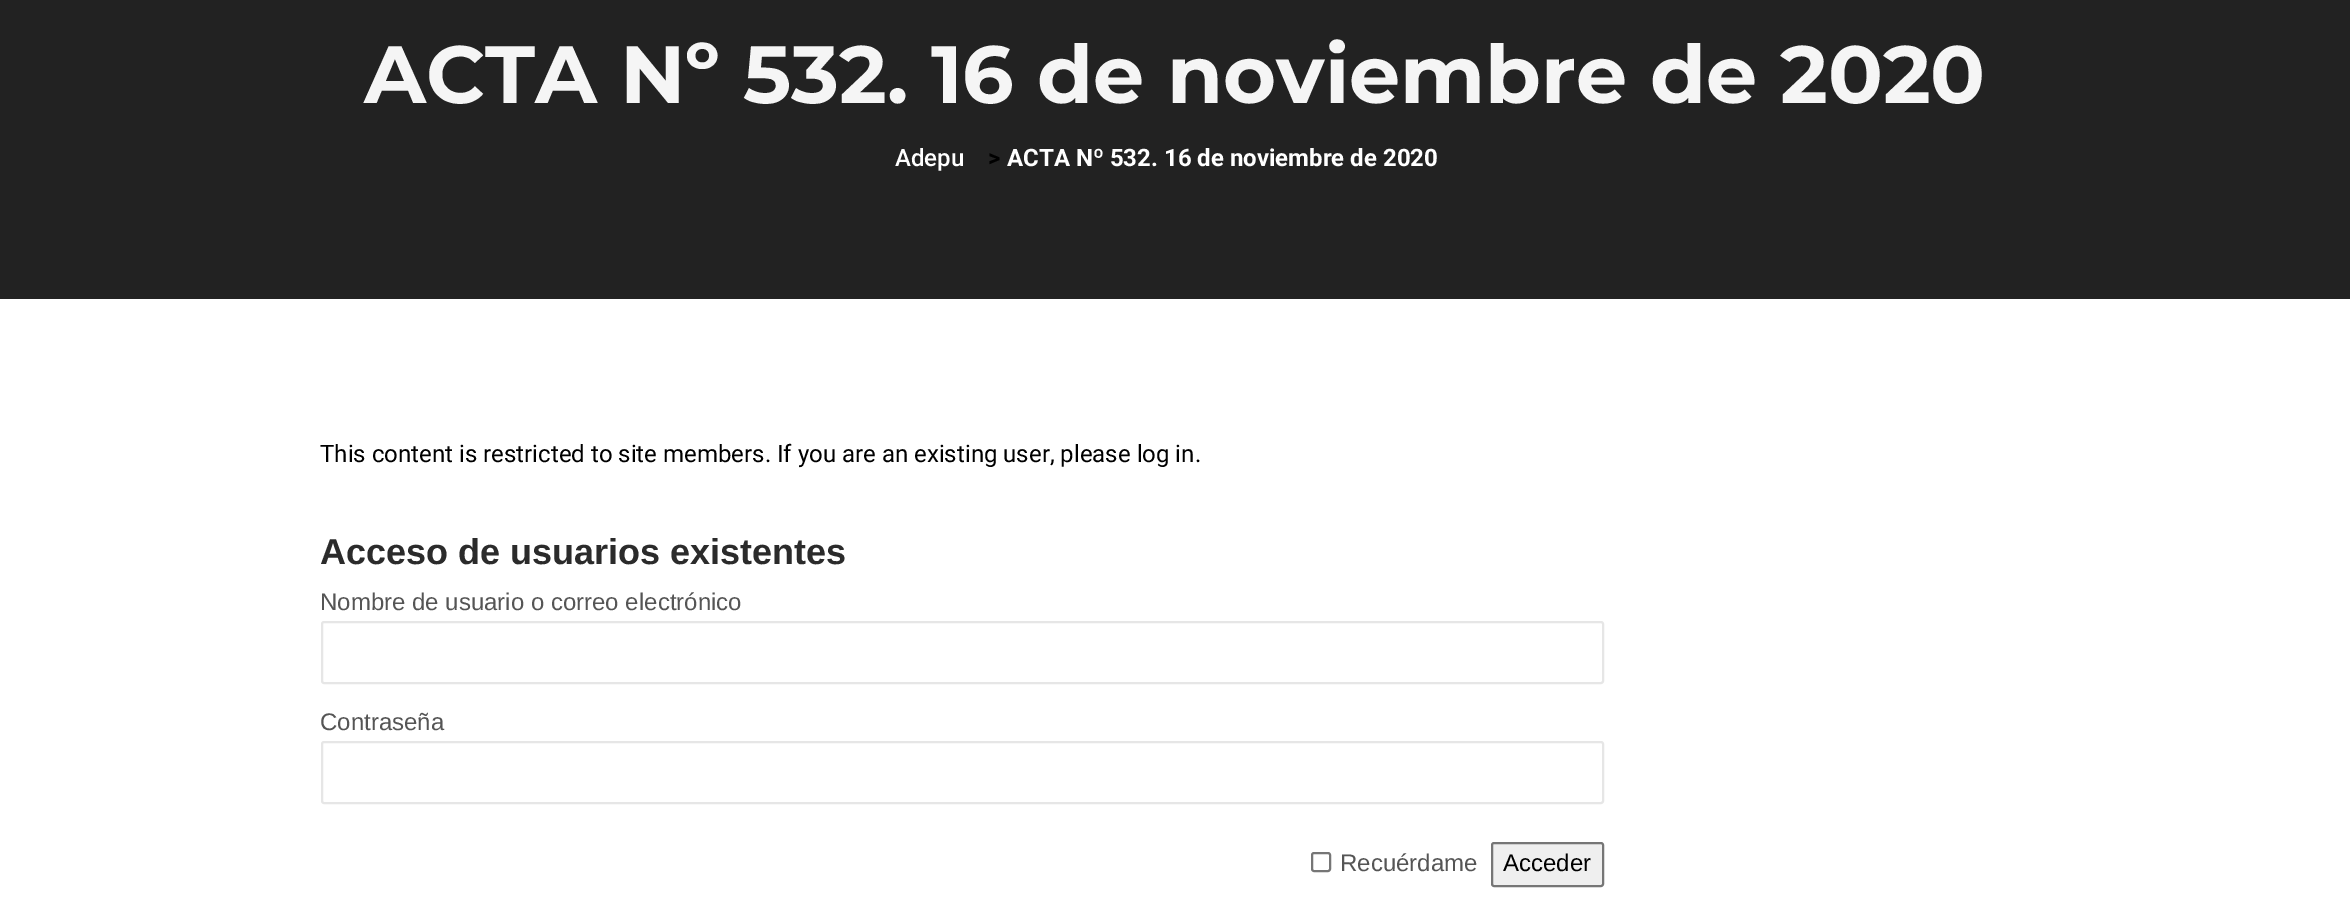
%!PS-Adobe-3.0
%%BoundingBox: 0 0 2350 911
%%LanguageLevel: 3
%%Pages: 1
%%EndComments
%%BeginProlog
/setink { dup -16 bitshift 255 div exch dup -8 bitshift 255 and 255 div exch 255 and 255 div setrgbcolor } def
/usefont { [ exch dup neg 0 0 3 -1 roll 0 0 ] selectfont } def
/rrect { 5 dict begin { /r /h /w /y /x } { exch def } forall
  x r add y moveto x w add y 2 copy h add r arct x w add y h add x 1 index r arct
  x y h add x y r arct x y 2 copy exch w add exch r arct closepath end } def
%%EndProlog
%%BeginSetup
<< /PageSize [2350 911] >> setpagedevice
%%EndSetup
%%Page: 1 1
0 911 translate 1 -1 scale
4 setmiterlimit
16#FFFFFF setink
0 0 2350 911 rectfill
16#222222 setink
0 0 2350 299 rectfill
/Montserrat-Bold 81 usefont
16#F5F5F5 setink
364 103 moveto (ACTA Nº 532. 16 de noviembre de 2020) show
/Roboto-Medium 24 usefont
16#FFFFFF setink
895 166 moveto (Adepu) show
/Roboto-Bold 24 usefont
16#000000 setink
988 166 moveto (>) show
16#FFFFFF setink
1007 166 moveto (ACTA Nº 532. 16 de noviembre de 2020) show
/Roboto-Regular 24 usefont
16#000000 setink
320 462 moveto (This content is restricted to site members. If you are an existing user, please log in.) show
/LiberationSans-Bold 36 usefont
16#2B2B2B setink
320 564 moveto (Acceso de usuarios existentes) show
/LiberationSans-Regular 24 usefont
16#555555 setink
320 610 moveto (Nombre de usuario o correo electrónico) show
16#E6E6E6 setink
2 setlinewidth
322 622 1281 61 2 rrect stroke
16#555555 setink
320 730 moveto (Contraseña) show
16#E6E6E6 setink
322 742 1281 61 2 rrect stroke
16#767676 setink
1312 853 18 18 2 rrect stroke
16#555555 setink
1340 871 moveto (Recuérdame) show
16#EFEFEF setink
1492 843 111 43 2 rrect gsave fill grestore
16#767676 setink
stroke
16#000000 setink
1503 871 moveto (Acceder) show
showpage
%%EOF
